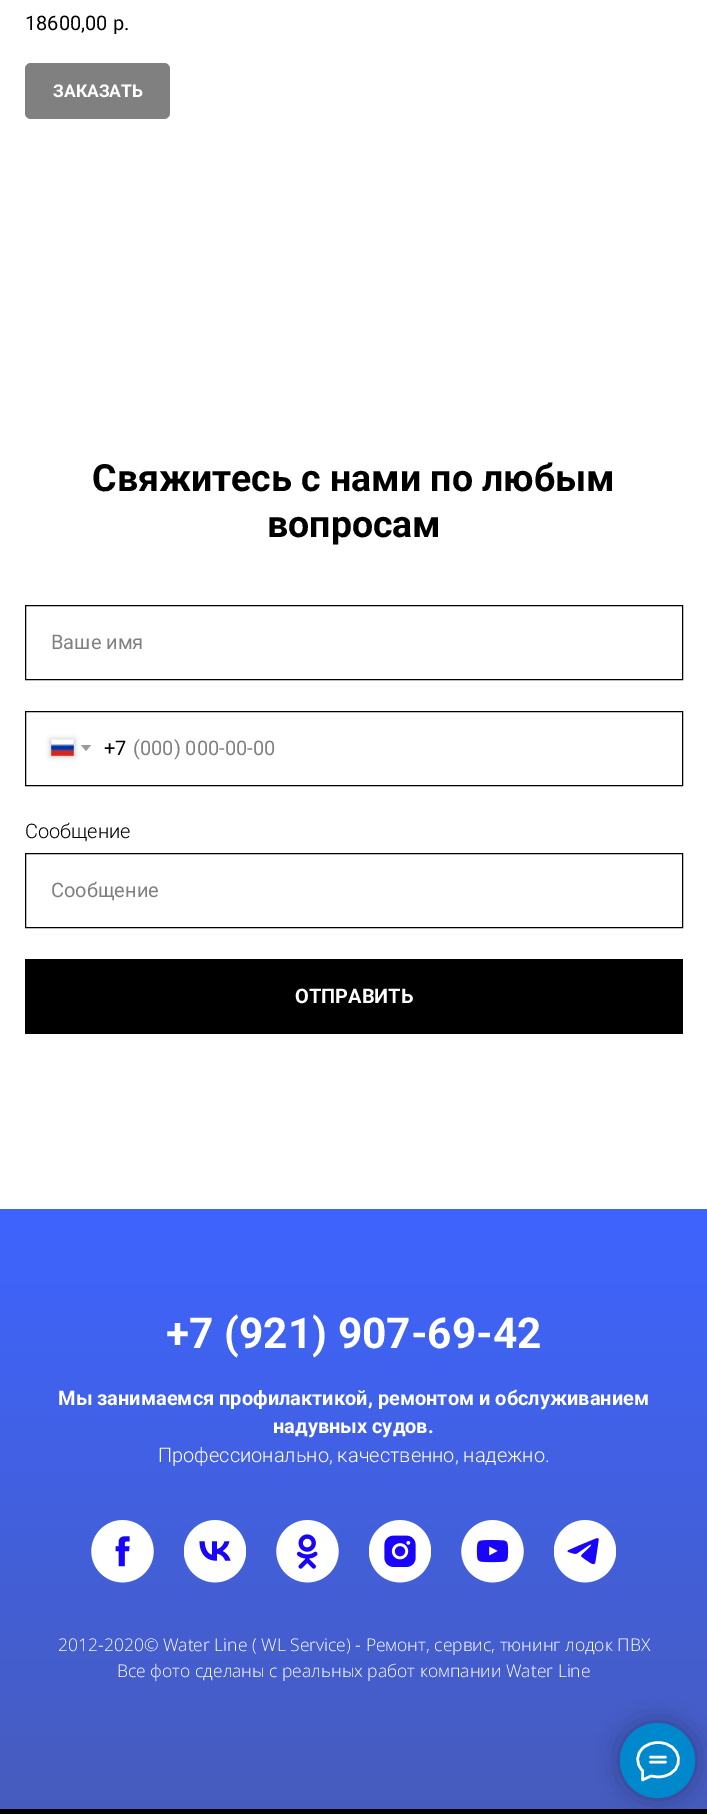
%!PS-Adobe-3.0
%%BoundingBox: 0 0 707 1814
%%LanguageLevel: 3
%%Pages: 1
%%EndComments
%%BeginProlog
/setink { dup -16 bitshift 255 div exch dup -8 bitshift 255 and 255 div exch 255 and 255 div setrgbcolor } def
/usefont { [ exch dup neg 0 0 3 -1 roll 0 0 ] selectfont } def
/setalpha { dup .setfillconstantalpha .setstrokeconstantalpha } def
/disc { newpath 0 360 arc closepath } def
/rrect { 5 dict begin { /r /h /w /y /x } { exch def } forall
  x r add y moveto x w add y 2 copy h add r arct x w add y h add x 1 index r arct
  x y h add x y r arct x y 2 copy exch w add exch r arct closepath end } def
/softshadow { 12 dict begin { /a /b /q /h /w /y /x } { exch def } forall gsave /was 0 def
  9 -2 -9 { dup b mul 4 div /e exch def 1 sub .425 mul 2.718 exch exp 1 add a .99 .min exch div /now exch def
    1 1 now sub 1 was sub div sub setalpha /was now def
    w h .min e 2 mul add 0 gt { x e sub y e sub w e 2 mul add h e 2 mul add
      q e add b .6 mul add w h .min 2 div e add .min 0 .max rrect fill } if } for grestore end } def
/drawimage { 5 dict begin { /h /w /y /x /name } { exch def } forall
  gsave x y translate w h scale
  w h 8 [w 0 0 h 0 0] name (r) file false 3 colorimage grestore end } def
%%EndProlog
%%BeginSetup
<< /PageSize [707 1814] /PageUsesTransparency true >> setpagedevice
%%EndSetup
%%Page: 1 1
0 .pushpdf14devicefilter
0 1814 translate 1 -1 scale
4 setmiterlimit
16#FFFFFF setink
0 0 707 1814 rectfill
/Roboto-Regular 20 usefont
16#000000 setink
25 30 moveto (18600,00) show
113 30 moveto (р.) show
16#808080 setink
25 63 145 56 6 rrect fill
/Roboto-Bold 17.5 usefont
16#FFFFFF setink
53 97 moveto (ЗАКАЗАТЬ) show
/Roboto-Bold 37.5 usefont
16#000000 setink
92 491 moveto (Свяжитесь с нами по любым) show
267 537 moveto (вопросам) show
25.5 605.5 657 74 rectstroke
/Roboto-Regular 20 usefont
16#808080 setink
51 649 moveto (Ваше имя) show
16#000000 setink
25.5 711.5 657 74 rectstroke
51 740 23 16 0 3 0.3 softshadow
16#C5C5C5 setink
51 740 23 16 rectfill
(img1.raw) 51 739 23 17 drawimage
16#9A9A9A setink
81 745 moveto 91 745 lineto 86 751 lineto closepath fill
16#000000 setink
104 755 moveto (+7) show
16#808080 setink
133 755 moveto (\(000\) 000-00-00) show
/Roboto-Light 20 usefont
16#000000 setink
25 838 moveto (Сообщение) show
25.5 853.5 657 74 rectstroke
/Roboto-Regular 20 usefont
16#808080 setink
51 897 moveto (Сообщение) show
16#000000 setink
25 959 658 75 rectfill
/Roboto-Bold 20 usefont
16#FFFFFF setink
295 1003 moveto (ОТПРАВИТЬ) show
gsave 0 1209 moveto 707 1209 lineto 707 1809 lineto 0 1809 lineto closepath clip newpath
<< /ShadingType 2 /ColorSpace /DeviceRGB /Coords [354 1209 354 1809] /Extend [true true] /Function << /FunctionType 2 /Domain [0 1] /C0 [0.243 0.392 1] /C1 [0.278 0.361 0.741] /N 1 >> >> shfill grestore
/Roboto-Bold 42.5 usefont
166 1348 moveto (+7 \(921\) 907-69-42) show
/Roboto-Bold 20 usefont
58 1405 moveto (Мы занимаемся профилактикой, ремонтом и обслуживанием) show
273 1433 moveto (надувных судов.) show
/Roboto-Light 20 usefont
158 1462 moveto (Профессионально, качественно, надежно.) show
16#1905FA setink
98 1526 50 50 20 rrect fill
(img2.raw) 91 1520 63 63 drawimage
190 1526 50 50 20 rrect fill
(img3.raw) 184 1520 62 63 drawimage
283 1526 50 50 20 rrect fill
(img4.raw) 276 1520 63 63 drawimage
375 1526 50 50 20 rrect fill
(img5.raw) 369 1520 62 63 drawimage
468 1526 50 50 20 rrect fill
(img6.raw) 461 1520 63 63 drawimage
560 1526 50 50 20 rrect fill
(img7.raw) 554 1520 62 63 drawimage
/OpenSans-Light 17.5 usefont
16#FFFFFF setink
58 1651 moveto (2012-2020© Water Line \( WL Service\) - Ремонт, сервис, тюнинг лодок ПВХ) show
117 1677 moveto (Все фото сделаны с реальных работ компании Water Line) show
16#000000 setink
0 1809 707 5 rectfill
620 1723 75 75 37.5 12.5 0.3 softshadow
16#0088CC setink
657.5 1760.5 37.5 disc fill
16#FFFFFF setink
2.5 setlinewidth
1 setlinecap
1 setlinejoin
650.5 1757 moveto 665.5 1757 lineto 650.5 1762 moveto 665.5 1762 lineto 642.5 1770.5 moveto 635.5 1764 636 1753.5 643.5 1747.5 curveto 647.5 1744 653 1742.5 658 1742.5 curveto 682.5 1742.5 686.5 1772.5 662.5 1776.5 curveto 658 1777.5 655 1776.5 651 1776 curveto 642.5 1780 lineto closepath stroke
.poppdf14devicefilter showpage
%%EOF
